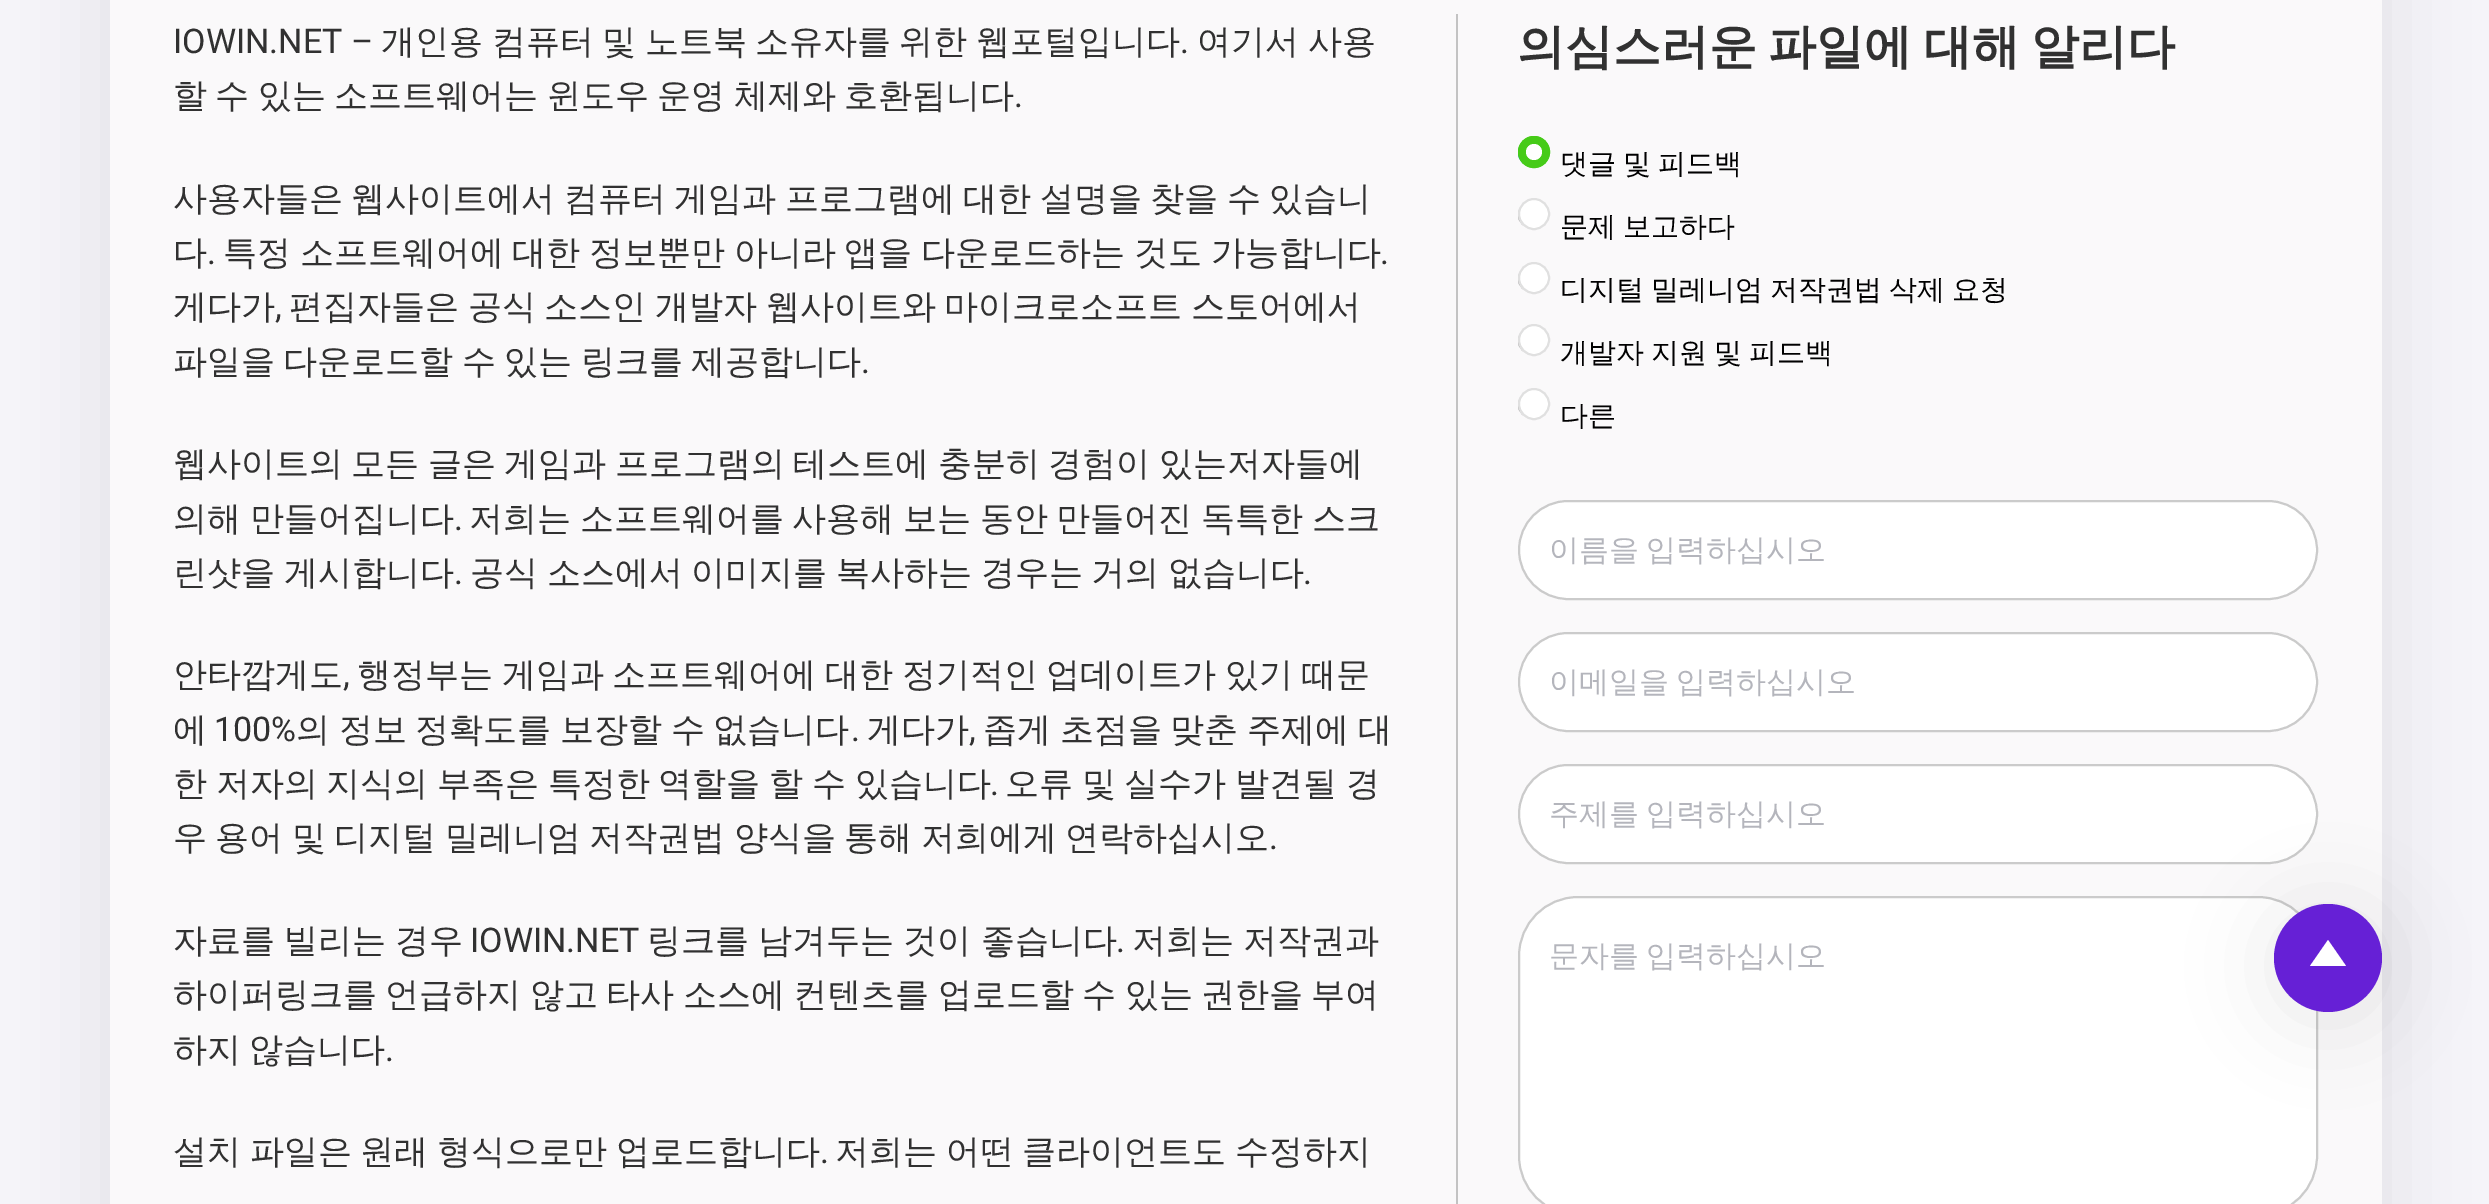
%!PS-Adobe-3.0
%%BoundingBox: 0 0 2489 1204
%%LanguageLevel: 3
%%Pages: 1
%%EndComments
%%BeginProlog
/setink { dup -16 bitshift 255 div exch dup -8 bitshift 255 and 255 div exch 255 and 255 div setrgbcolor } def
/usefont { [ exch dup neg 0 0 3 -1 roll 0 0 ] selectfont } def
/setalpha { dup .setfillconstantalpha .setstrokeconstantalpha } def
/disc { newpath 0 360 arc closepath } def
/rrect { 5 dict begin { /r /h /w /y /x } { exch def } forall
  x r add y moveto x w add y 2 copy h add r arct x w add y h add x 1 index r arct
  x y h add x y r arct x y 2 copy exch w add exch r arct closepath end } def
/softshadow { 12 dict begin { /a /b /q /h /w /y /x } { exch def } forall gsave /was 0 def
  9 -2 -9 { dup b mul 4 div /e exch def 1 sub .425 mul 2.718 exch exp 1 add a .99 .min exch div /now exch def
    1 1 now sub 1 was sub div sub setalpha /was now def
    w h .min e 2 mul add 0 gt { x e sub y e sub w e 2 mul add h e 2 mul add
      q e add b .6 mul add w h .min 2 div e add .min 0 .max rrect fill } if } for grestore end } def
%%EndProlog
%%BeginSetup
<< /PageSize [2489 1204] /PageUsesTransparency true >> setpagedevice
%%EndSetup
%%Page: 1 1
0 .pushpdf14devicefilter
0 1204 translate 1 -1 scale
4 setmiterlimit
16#F5F4F9 setink
0 0 2489 1204 rectfill
16#000000 setink
110 -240 2272 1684 120 40 0.08 softshadow
16#FAF9FA setink
110 0 2272 1204 rectfill
16#C3C3C3 setink
1456 14 2 1190 rectfill
/Roboto-Regular 34 usefont
16#313131 setink
173 53 moveto (IOWIN.NET –) show
/WenQuanYiZenHei-Medium 34 usefont
[
    [(개인용) 381 53]
    [(컴퓨터) 492 53]
    [(및) 602 53]
    [(노트북) 645 53]
    [(소유자를) 755 53]
    [(위한) 899 53]
    [(웹포털입니다) 976 53]
] { aload pop moveto show } forall
/Roboto-Regular 34 usefont
1180 53 moveto (.) show
/WenQuanYiZenHei-Medium 34 usefont
1197 53 moveto (여기서) show
1308 53 moveto (사용) show
173 107 moveto -1.75 0 32 (할 수 있는 소프트웨어는 윈도우 운영 체제와 호환됩니다) widthshow
/Roboto-Regular 34 usefont
1014 107 moveto (.) show
/WenQuanYiZenHei-Medium 34 usefont
173 210 moveto -1.75 0 32 (사용자들은 웹사이트에서 컴퓨터 게임과 프로그램에 대한 설명을 찾을 수 있습니) widthshow
173 264 moveto (다) show
/Roboto-Regular 34 usefont
207 264 moveto (.) show
/WenQuanYiZenHei-Medium 34 usefont
223 264 moveto -1.5 0 32 (특정 소프트웨어에 대한 정보뿐만 아니라 앱을 다운로드하는 것도 가능합니다) widthshow
/Roboto-Regular 34 usefont
1380 264 moveto (.) show
/WenQuanYiZenHei-Medium 34 usefont
173 318 moveto (게다가) show
/Roboto-Regular 34 usefont
275 318 moveto (,) show
/WenQuanYiZenHei-Medium 34 usefont
289 318 moveto -1.5 0 32 (편집자들은 공식 소스인 개발자 웹사이트와 마이크로소프트 스토어에서) widthshow
173 373 moveto -1.75 0 32 (파일을 다운로드할 수 있는 링크를 제공합니다) widthshow
/Roboto-Regular 34 usefont
861 373 moveto (.) show
/WenQuanYiZenHei-Medium 34 usefont
173 475 moveto -1.75 0 32 (웹사이트의 모든 글은 게임과 프로그램의 테스트에 충분히 경험이 있는저자들에) widthshow
173 530 moveto -1.5 0 32 (의해 만들어집니다) widthshow
/Roboto-Regular 34 usefont
454 530 moveto (.) show
/WenQuanYiZenHei-Medium 34 usefont
469 530 moveto -1.5 0 32 (저희는 소프트웨어를 사용해 보는 동안 만들어진 독특한 스크) widthshow
173 584 moveto -1.5 0 32 (린샷을 게시합니다) widthshow
/Roboto-Regular 34 usefont
454 584 moveto (.) show
/WenQuanYiZenHei-Medium 34 usefont
470 584 moveto -1.5 0 32 (공식 소스에서 이미지를 복사하는 경우는 거의 없습니다) widthshow
/Roboto-Regular 34 usefont
1303 584 moveto (.) show
/WenQuanYiZenHei-Medium 34 usefont
173 686 moveto (안타깝게도) show
/Roboto-Regular 34 usefont
343 686 moveto (,) show
/WenQuanYiZenHei-Medium 34 usefont
357 686 moveto -1.5 0 32 (행정부는 게임과 소프트웨어에 대한 정기적인 업데이트가 있기 때문) widthshow
173 741 moveto (에) show
/Roboto-Regular 34 usefont
214 741 moveto (100%) show
/WenQuanYiZenHei-Medium 34 usefont
296 741 moveto -1.5 0 32 (의 정보 정확도를 보장할 수 없습니다) widthshow
/Roboto-Regular 34 usefont
851 741 moveto (.) show
/WenQuanYiZenHei-Medium 34 usefont
867 741 moveto (게다가) show
/Roboto-Regular 34 usefont
969 741 moveto (,) show
/WenQuanYiZenHei-Medium 34 usefont
983 741 moveto -1.5 0 32 (좁게 초점을 맞춘 주제에 대) widthshow
173 795 moveto -1.5 0 32 (한 저자의 지식의 부족은 특정한 역할을 할 수 있습니다) widthshow
/Roboto-Regular 34 usefont
990 795 moveto (.) show
/WenQuanYiZenHei-Medium 34 usefont
1005 795 moveto -1.5 0 32 (오류 및 실수가 발견될 경) widthshow
173 849 moveto -1.75 0 32 (우 용어 및 디지털 밀레니엄 저작권법 양식을 통해 저희에게 연락하십시오) widthshow
/Roboto-Regular 34 usefont
1269 849 moveto (.) show
/WenQuanYiZenHei-Medium 34 usefont
173 952 moveto -1 0 32 (자료를 빌리는 경우) widthshow
/Roboto-Regular 34 usefont
470 952 moveto (IOWIN.NET) show
/WenQuanYiZenHei-Medium 34 usefont
647 952 moveto -1 0 32 (링크를 남겨두는 것이 좋습니다) widthshow
/Roboto-Regular 34 usefont
1116 952 moveto (.) show
/WenQuanYiZenHei-Medium 34 usefont
1132 952 moveto -1 0 32 (저희는 저작권과) widthshow
173 1006 moveto -1.75 0 32 (하이퍼링크를 언급하지 않고 타사 소스에 컨텐츠를 업로드할 수 있는 권한을 부여) widthshow
173 1061 moveto -1.75 0 32 (하지 않습니다) widthshow
/Roboto-Regular 34 usefont
385 1061 moveto (.) show
/WenQuanYiZenHei-Medium 34 usefont
173 1163 moveto -1.5 0 32 (설치 파일은 원래 형식으로만 업로드합니다) widthshow
/Roboto-Regular 34 usefont
820 1163 moveto (.) show
/WenQuanYiZenHei-Medium 34 usefont
835 1163 moveto -1.5 0 32 (저희는 어떤 클라이언트도 수정하지) widthshow
/WenQuanYiZenHei-Bold 48 usefont
1517 63 moveto -3 0 32 (의심스러운 파일에 대해 알리다) widthshow
16#0075FF setink
2 setlinewidth
1531 153 12 disc stroke
16#46CB18 setink
1534 152 16 disc fill
16#FFFFFF setink
1534 152 8 disc fill
16#46CB18 setink
1534 152 15 disc stroke
/WenQuanYiZenHei-Medium 28 usefont
16#000000 setink
1560 173 moveto -1.5 0 32 (댓글 및 피드백) widthshow
16#767676 setink
1531 215 12 disc stroke
16#FFFFFF setink
1534 214 16 disc fill
0.12 setalpha
16#000000 setink
1534 214 15 disc stroke
1 setalpha
1560 236 moveto -1.5 0 32 (문제 보고하다) widthshow
16#767676 setink
1531 279 12 disc stroke
16#FFFFFF setink
1534 278 16 disc fill
0.12 setalpha
16#000000 setink
1534 278 15 disc stroke
1 setalpha
1560 299 moveto -1.5 0 32 (디지털 밀레니엄 저작권법 삭제 요청) widthshow
16#767676 setink
1531 341 12 disc stroke
16#FFFFFF setink
1534 340 16 disc fill
0.12 setalpha
16#000000 setink
1534 340 15 disc stroke
1 setalpha
1560 362 moveto -1.5 0 32 (개발자 지원 및 피드백) widthshow
16#767676 setink
1531 405 12 disc stroke
16#FFFFFF setink
1534 404 16 disc fill
0.12 setalpha
16#000000 setink
1534 404 15 disc stroke
1 setalpha
1560 425 moveto (다른) show
16#FFFFFF setink
1519 501 798 98 49 rrect gsave fill grestore
16#CBCBCB setink
stroke
/WenQuanYiZenHei-Medium 30 usefont
16#B4B5BC setink
1549 560 moveto -2 0 32 (이름을 입력하십시오) widthshow
16#FFFFFF setink
1519 633 798 98 49 rrect gsave fill grestore
16#CBCBCB setink
stroke
16#B4B5BC setink
1549 692 moveto -2 0 32 (이메일을 입력하십시오) widthshow
16#FFFFFF setink
1519 765 798 98 49 rrect gsave fill grestore
16#CBCBCB setink
stroke
16#B4B5BC setink
1549 824 moveto -2 0 32 (주제를 입력하십시오) widthshow
16#FFFFFF setink
1519 897 798 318 59 rrect gsave fill grestore
16#CBCBCB setink
stroke
16#B4B5BC setink
1549 966 moveto -2 0 32 (문자를 입력하십시오) widthshow
16#000000 setink
2274 912 108 108 54 40 0.08 softshadow
16#6620D6 setink
2328 958 54 disc fill
16#FFFFFF setink
2346 966 moveto 2310 966 lineto 2328 940 lineto closepath fill
.poppdf14devicefilter showpage
%%EOF
